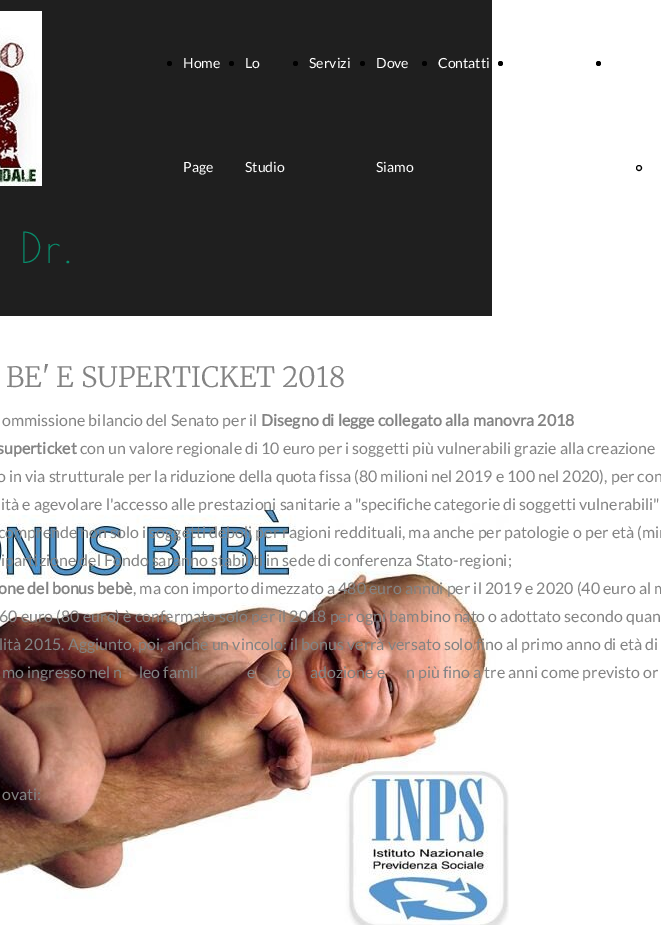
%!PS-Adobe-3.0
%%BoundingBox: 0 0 661 925
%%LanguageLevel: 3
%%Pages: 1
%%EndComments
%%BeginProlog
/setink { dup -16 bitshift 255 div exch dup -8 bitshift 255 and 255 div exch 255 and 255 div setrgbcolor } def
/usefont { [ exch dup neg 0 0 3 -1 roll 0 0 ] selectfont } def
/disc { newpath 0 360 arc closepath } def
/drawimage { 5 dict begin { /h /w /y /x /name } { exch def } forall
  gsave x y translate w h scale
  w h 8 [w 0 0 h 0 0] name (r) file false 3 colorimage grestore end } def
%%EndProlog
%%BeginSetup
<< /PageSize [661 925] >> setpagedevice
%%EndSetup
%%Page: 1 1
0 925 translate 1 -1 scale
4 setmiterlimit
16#FFFFFF setink
0 0 661 925 rectfill
16#1F1F1F setink
0 0 492 316 rectfill
(img1.raw) 0 11 42 175 drawimage
16#000000 setink
169.5 63.5 2.5 disc fill
/Lato-Regular 14 usefont
16#FFFFFF setink
183 68 moveto (Home) show
183 172 moveto (Page) show
16#000000 setink
231.5 63.5 2.5 disc fill
16#FFFFFF setink
245 68 moveto (Lo) show
245 172 moveto (Studio) show
16#000000 setink
295.5 63.5 2.5 disc fill
16#FFFFFF setink
309 68 moveto (Servizi) show
16#000000 setink
362.5 63.5 2.5 disc fill
16#FFFFFF setink
376 68 moveto (Dove) show
376 172 moveto (Siamo) show
16#000000 setink
424.5 63.5 2.5 disc fill
16#FFFFFF setink
438 68 moveto (Contatti) show
16#000000 setink
500.5 63.5 2.5 disc fill
598.5 63.5 2.5 disc fill
639 168 2.5 disc stroke
/PoiretOne-Regular 42 usefont
16#088B6A setink
20 263 moveto 4 0 (Dr.) ashow
/Merriweather-Light 28 usefont
16#838383 setink
6 387 moveto (BE' E SUPERTICKET 2018) show
/Lato-Regular 16 usefont
2 426 moveto (ommissione bilancio del Senato per il) show
/Lato-Bold 16 usefont
261 426 moveto (Disegno di legge collegato alla manovra 2018) show
-3 454 moveto (superticket) show
/Lato-Regular 16 usefont
80 454 moveto (con un valore regionale di 10 euro per i soggetti più vulnerabili grazie alla creazione) show
-3 482 moveto (o in via strutturale per la riduzione della quota fissa \(80 milioni nel 2019 e 100 nel 2020\), per con) show
(img2.raw) 0 499 509 426 drawimage
[
    [(ità e agevolare l'accesso alle prestazioni sanitarie a "specifiche categorie di soggetti vulnerabili") 1 510]
    [(comprende non solo i soggetti deboli per ragioni reddituali, ma anche per patologie o per età \(min) -2 538]
    [(ipartizione del Fondo saranno stabiliti in sede di conferenza Stato-regioni;) 1 566]
] { aload pop moveto show } forall
/Lato-Bold 16 usefont
-2 594 moveto (one del bonus bebè) show
/Lato-Regular 16 usefont
[
    [(, ma con importo dimezzato a 480 euro annui per il 2019 e 2020 \(40 euro al m) 133 594]
    [(60 euro \(80 euro\) è confermato solo per il 2018 per ogni bambino nato o adottato secondo quan) -1 622]
    [(lità 2015. Aggiunto, poi, anche un vincolo: il bonus verrà versato solo fino al primo anno di età di) -1 650]
    [(mo ingresso nel n) 2 678]
    [(leo famil) 139 678]
    [(e) 247 678]
    [(to) 276 678]
    [(adozione e) 310 678]
    [(n più fino a tre anni come previsto or) 406 678]
    [(ovati:) 2 800]
] { aload pop moveto show } forall
showpage
%%EOF
